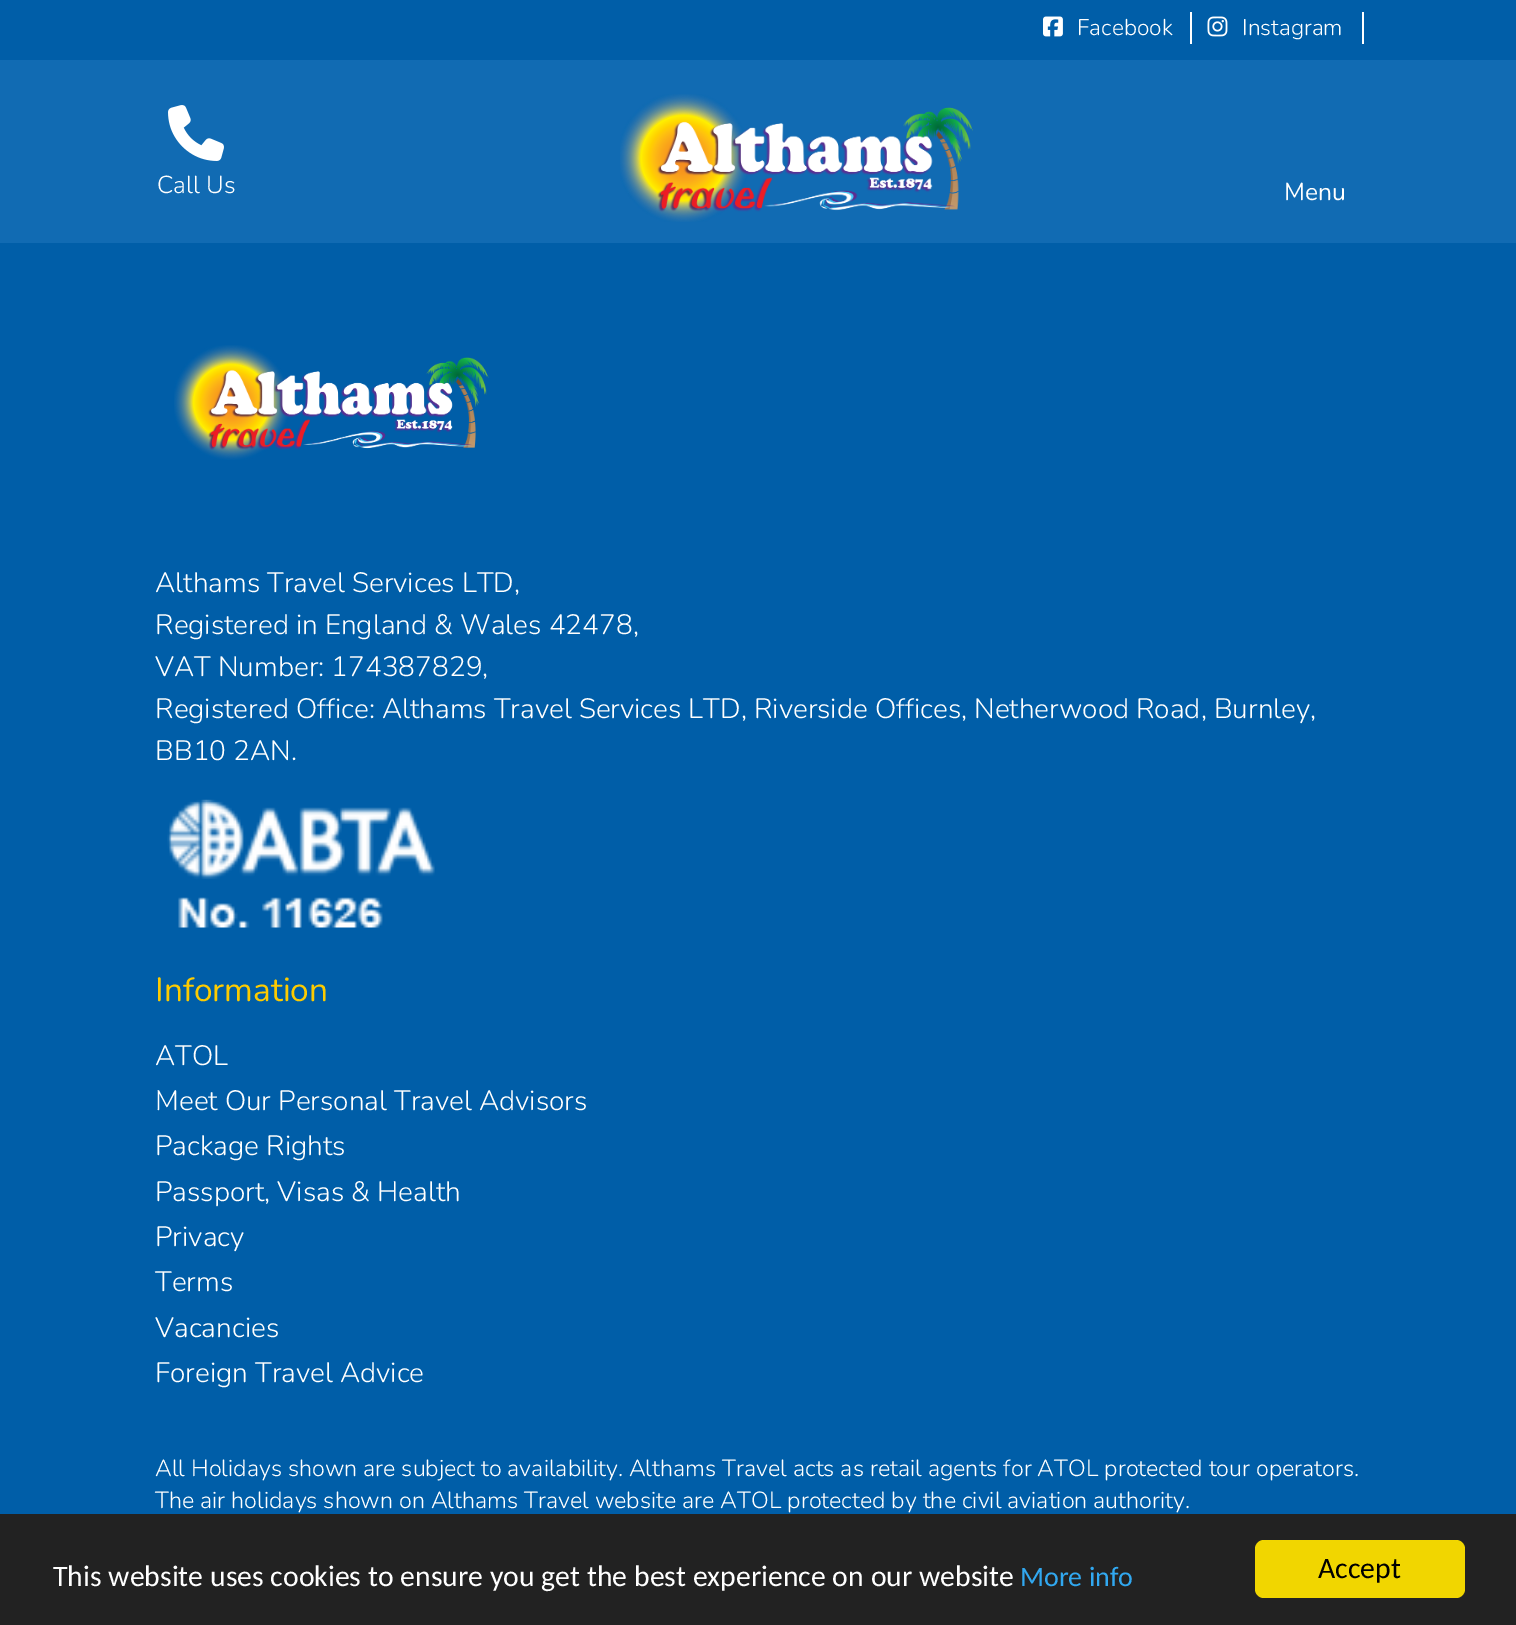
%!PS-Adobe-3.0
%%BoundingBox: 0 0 1516 1625
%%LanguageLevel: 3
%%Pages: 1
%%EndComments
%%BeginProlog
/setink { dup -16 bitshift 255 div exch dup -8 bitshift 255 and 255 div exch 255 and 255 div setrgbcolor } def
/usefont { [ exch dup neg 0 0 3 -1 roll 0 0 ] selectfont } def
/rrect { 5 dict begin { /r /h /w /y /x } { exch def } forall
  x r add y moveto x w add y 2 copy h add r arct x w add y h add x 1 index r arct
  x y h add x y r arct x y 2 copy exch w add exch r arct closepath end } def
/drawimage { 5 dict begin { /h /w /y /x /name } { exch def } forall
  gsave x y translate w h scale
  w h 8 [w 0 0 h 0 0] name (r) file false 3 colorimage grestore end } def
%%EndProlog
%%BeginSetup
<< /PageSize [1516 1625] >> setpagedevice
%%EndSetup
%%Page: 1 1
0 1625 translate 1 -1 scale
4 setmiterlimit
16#005EA8 setink
0 0 1516 1625 rectfill
16#FFFFFF setink
1190 12 2 32 rectfill
(img1.raw) 1043 16 20 21 drawimage
/Nunito-Light 22.75 usefont
1077 35 moveto (Facebook) show
1362 12 2 32 rectfill
(img2.raw) 1207 16 21 21 drawimage
1242 35 moveto (Instagram) show
16#116BB3 setink
0 60 1516 183 rectfill
(img3.raw) 168 105 56 56 drawimage
/Nunito-Light 24.5 usefont
16#FFFFFF setink
157 193 moveto (Call Us) show
(img4.raw) 620 94 353 128 drawimage
/Nunito-Regular 24.5 usefont
1284 200 moveto (Menu) show
(img5.raw) 174 345 315 115 drawimage
/Nunito-Light 28 usefont
[
    [(Althams Travel Services LTD,) 155 592]
    [(Registered in England & Wales 42478,) 155 634]
    [(VAT Number: 174387829,) 155 676]
    [(Registered Office: Althams Travel Services LTD, Riverside Offices, Netherwood Road, Burnley,) 155 718]
    [(BB10 2AN.) 155 760]
] { aload pop moveto show } forall
(img6.raw) 167 799 268 129 drawimage
/Nunito-Regular 33.5 usefont
16#FDCB00 setink
155 1001 moveto (Information) show
/Nunito-Light 28 usefont
16#FFFFFF setink
[
    [(ATOL) 155 1065]
    [(Meet Our Personal Travel Advisors) 155 1110]
    [(Package Rights) 155 1155]
    [(Passport, Visas & Health) 155 1201]
    [(Privacy) 155 1246]
    [(Terms) 155 1291]
    [(Vacancies) 155 1337]
    [(Foreign Travel Advice) 155 1382]
] { aload pop moveto show } forall
/Nunito-Light 23.33 usefont
155 1476 moveto (All Holidays shown are subject to availability. Althams Travel acts as retail agents for ATOL protected tour operators.) show
155 1508 moveto (The air holidays shown on Althams Travel website are ATOL protected by the civil aviation authority.) show
16#222222 setink
0 1514 1516 111 rectfill
/Carlito-Regular 29.75 usefont
16#FFFFFF setink
53 1586 moveto (This website uses cookies to ensure you get the best experience on our website) show
/Carlito-Regular 28 usefont
16#31A8F0 setink
1020 1586 moveto (More info) show
16#F1D600 setink
1255 1540 210 58 9 rrect fill
/Carlito-Regular 29.75 usefont
16#000000 setink
1318 1578 moveto (Accept) show
showpage
%%EOF
